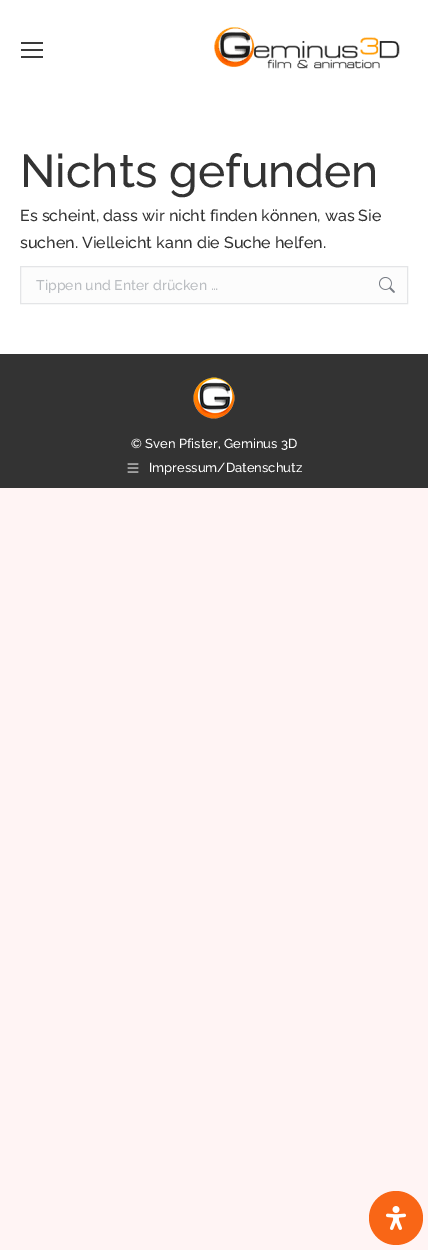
%!PS-Adobe-3.0
%%BoundingBox: 0 0 428 1250
%%LanguageLevel: 3
%%Pages: 1
%%EndComments
%%BeginProlog
/setink { dup -16 bitshift 255 div exch dup -8 bitshift 255 and 255 div exch 255 and 255 div setrgbcolor } def
/usefont { [ exch dup neg 0 0 3 -1 roll 0 0 ] selectfont } def
/disc { newpath 0 360 arc closepath } def
/drawimage { 5 dict begin { /h /w /y /x /name } { exch def } forall
  gsave x y translate w h scale
  w h 8 [w 0 0 h 0 0] name (r) file false 3 colorimage grestore end } def
%%EndProlog
%%BeginSetup
<< /PageSize [428 1250] >> setpagedevice
%%EndSetup
%%Page: 1 1
0 1250 translate 1 -1 scale
4 setmiterlimit
16#FFF4F4 setink
0 0 428 1250 rectfill
[
    [0 0 428 354 16#FFFFFF]
    [21 42 22 2 16#3A3A3A]
    [21 49 22 2 16#3A3A3A]
    [21 56 22 2 16#3A3A3A]
] { aload pop setink rectfill } forall
(img1.raw) 214 27 186 42 drawimage
/Raleway-Medium 46 usefont
16#333333 setink
20 187 moveto (Nichts gefunden) show
/Raleway-Medium 16 usefont
20 221 moveto (Es scheint, dass wir nicht finden können, was Sie) show
20 248 moveto (suchen. Vielleicht kann die Suche helfen.) show
16#FCFCFC setink
20.5 266.5 moveto 407.5 266.5 lineto 407.5 303.5 lineto 20.5 303.5 lineto closepath gsave fill grestore
16#E4E5E7 setink
stroke
/Raleway-Medium 14 usefont
16#BABDC1 setink
36 290 moveto (Tippen und Enter drücken …) show
(img2.raw) 379 277 16 16 drawimage
16#333333 setink
0 354 428 134 rectfill
(img3.raw) 193 377 42 42 drawimage
/Raleway-Medium 13 usefont
16#FFFFFF setink
131 448 moveto (© Sven Pfister, Geminus 3D) show
(img4.raw) 127 463 12 10 drawimage
149 472 moveto (Impressum/Datenschutz) show
16#F96616 setink
396 1218 27 disc fill
(img5.raw) 386 1206 20 24 drawimage
showpage
%%EOF
